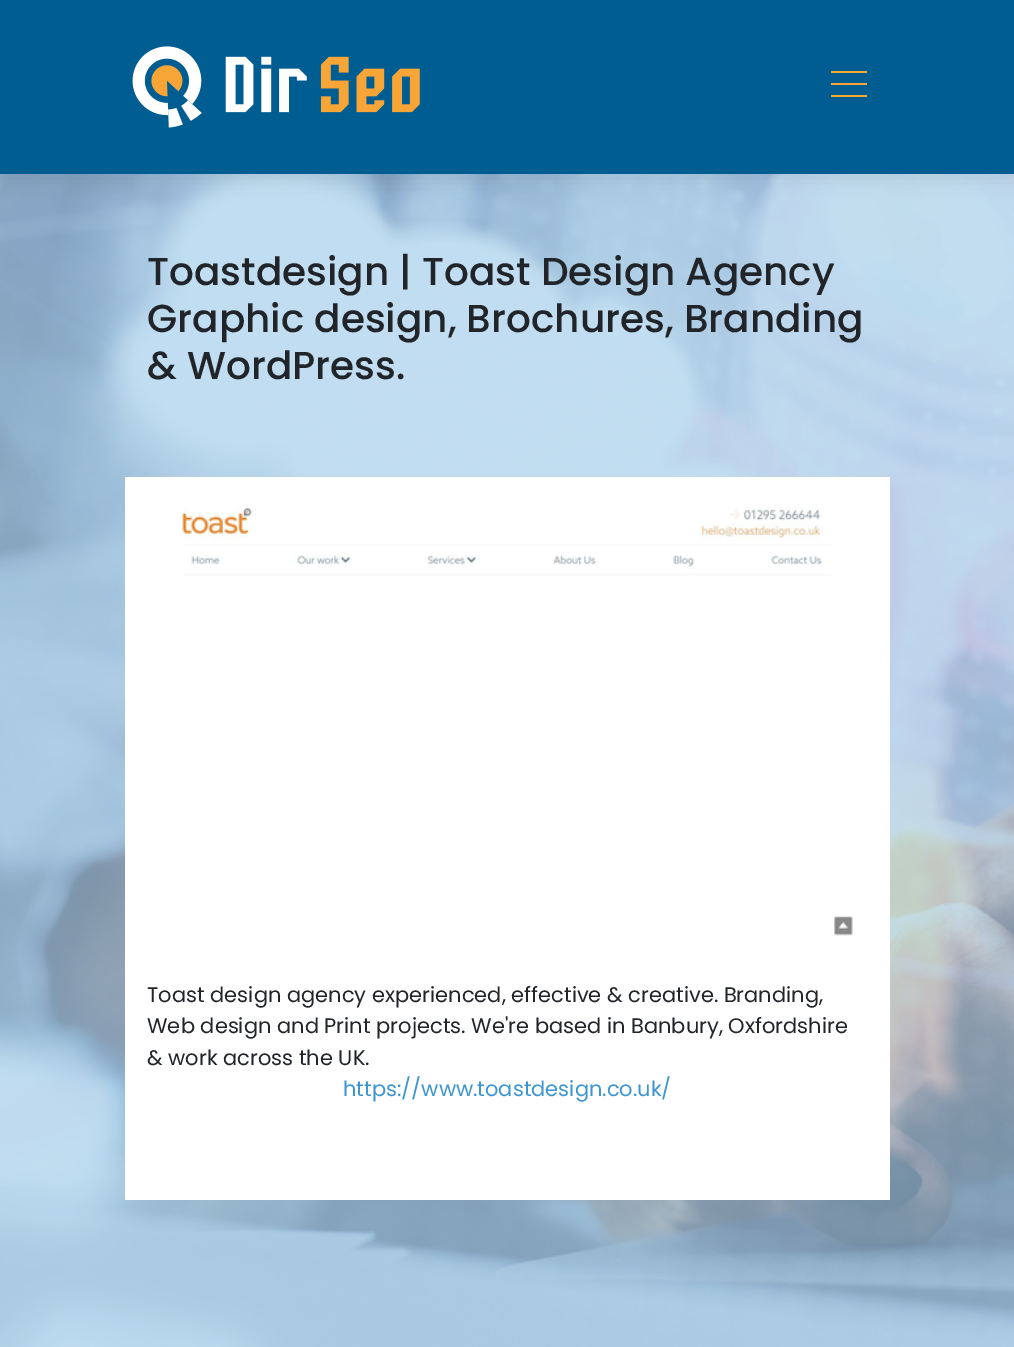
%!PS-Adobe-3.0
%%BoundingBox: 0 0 1014 1347
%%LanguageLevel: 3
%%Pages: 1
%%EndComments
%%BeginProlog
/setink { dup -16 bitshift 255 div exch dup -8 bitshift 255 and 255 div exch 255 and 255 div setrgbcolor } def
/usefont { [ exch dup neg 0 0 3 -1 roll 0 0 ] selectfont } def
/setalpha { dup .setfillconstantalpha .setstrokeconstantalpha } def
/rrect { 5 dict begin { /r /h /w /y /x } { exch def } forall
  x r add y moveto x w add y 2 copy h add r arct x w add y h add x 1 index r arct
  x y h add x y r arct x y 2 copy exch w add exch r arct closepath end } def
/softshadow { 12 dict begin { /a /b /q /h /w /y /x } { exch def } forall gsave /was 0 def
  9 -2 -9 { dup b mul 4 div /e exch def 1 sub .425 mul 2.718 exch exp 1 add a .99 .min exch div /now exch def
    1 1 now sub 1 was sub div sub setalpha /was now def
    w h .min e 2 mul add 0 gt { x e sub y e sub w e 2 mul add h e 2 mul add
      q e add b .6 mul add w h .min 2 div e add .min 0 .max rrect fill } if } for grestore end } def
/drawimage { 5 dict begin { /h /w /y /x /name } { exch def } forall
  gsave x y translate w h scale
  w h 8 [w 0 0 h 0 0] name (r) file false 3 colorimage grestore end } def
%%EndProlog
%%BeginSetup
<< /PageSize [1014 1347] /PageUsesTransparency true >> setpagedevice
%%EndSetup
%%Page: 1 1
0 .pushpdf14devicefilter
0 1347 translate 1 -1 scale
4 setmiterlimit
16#FFFFFF setink
0 0 1014 1347 rectfill
(img1.raw) 0 174 1014 1173 drawimage
16#000000 setink
0 3 1014 174 0 10 0.1 softshadow
16#005D92 setink
0 0 1014 174 rectfill
(img2.raw) 132 46 288 82 drawimage
[
    [831 71 36 2 16#FAA634]
    [831 83 36 2 16#FAA634]
    [831 95 36 2 16#FAA634]
] { aload pop setink rectfill } forall
/Poppins-Medium 39 usefont
16#212529 setink
[
    [(Toastdesign | Toast Design Agency) 147 285]
    [(Graphic design, Brochures, Branding) 147 332]
    [(& WordPress.) 147 379]
] { aload pop moveto show } forall
16#FFFFFF setink
125 477 765 723 rectfill
(img3.raw) 179 507 674 429 drawimage
/Poppins-Regular 21 usefont
16#212529 setink
[
    [(Toast design agency experienced, effective & creative. Branding,) 147 1002]
    [(Web design and Print projects. We're based in Banbury, Oxfordshire) 147 1033]
    [(& work across the UK.) 147 1065]
] { aload pop moveto show } forall
16#3D95D1 setink
343 1096 moveto (https://www.toastdesign.co.uk/) show
.poppdf14devicefilter showpage
%%EOF
